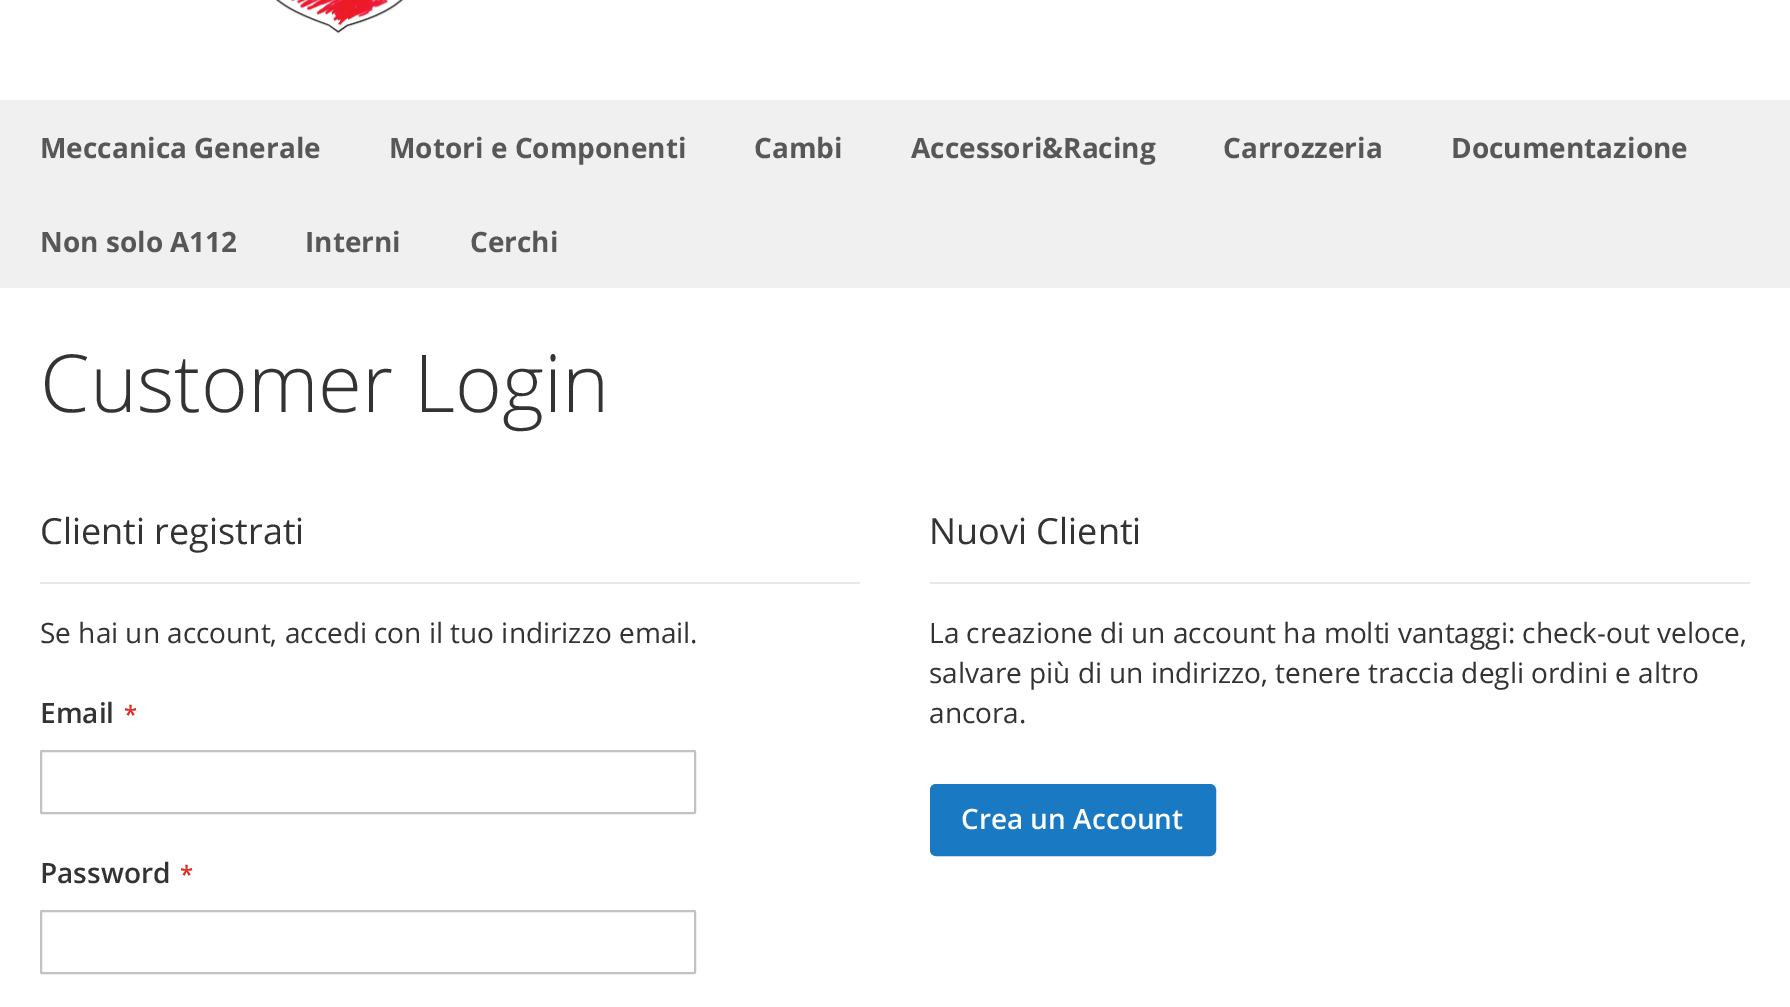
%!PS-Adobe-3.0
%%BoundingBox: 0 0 1790 1007
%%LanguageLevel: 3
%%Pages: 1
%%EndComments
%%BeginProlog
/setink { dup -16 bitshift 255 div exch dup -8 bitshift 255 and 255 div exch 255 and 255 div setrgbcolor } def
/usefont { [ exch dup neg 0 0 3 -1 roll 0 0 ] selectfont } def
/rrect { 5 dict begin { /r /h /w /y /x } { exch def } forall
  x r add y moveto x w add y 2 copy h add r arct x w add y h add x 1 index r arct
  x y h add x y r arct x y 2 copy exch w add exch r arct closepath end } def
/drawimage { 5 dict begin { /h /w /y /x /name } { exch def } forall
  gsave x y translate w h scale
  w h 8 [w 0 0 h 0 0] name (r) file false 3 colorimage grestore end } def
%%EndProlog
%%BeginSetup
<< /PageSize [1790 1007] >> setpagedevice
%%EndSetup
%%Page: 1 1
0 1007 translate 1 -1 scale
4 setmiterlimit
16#FFFFFF setink
0 0 1790 1007 rectfill
(img1.raw) 275 0 129 34 drawimage
16#F0F0F0 setink
0 100 1790 188 rectfill
/OpenSans-Bold 28 usefont
16#575757 setink
[
    [(Meccanica Generale) 40 158]
    [(Motori e Componenti) 389 158]
    [(Cambi) 754 158]
    [(Accessori&Racing) 911 158]
    [(Carrozzeria) 1223 158]
    [(Documentazione) 1451 158]
    [(Non solo A112) 40 252]
    [(Interni) 305 252]
    [(Cerchi) 470 252]
] { aload pop moveto show } forall
/OpenSans-Light 80 usefont
16#333333 setink
40 412 moveto (Customer Login) show
16#E8E8E8 setink
40 582 820 2 rectfill
/OpenSans-Regular 36 usefont
16#333333 setink
40 544 moveto (Clienti registrati) show
/OpenSans-Regular 28 usefont
40 643 moveto (Se hai un account, accedi con il tuo indirizzo email.) show
/OpenSans-SemiBold 28 usefont
40 723 moveto (Email) show
/OpenSans-SemiBold 24 usefont
16#E02B27 setink
124 723 moveto (*) show
16#C2C2C2 setink
2 setlinewidth
41 751 654 62 1 rrect stroke
/OpenSans-SemiBold 28 usefont
16#333333 setink
40 883 moveto (Password) show
/OpenSans-SemiBold 24 usefont
16#E02B27 setink
180 883 moveto (*) show
16#C2C2C2 setink
41 911 654 62 1 rrect stroke
16#E8E8E8 setink
930 582 820 2 rectfill
/OpenSans-Regular 36 usefont
16#333333 setink
929 544 moveto (Nuovi Clienti) show
/OpenSans-Regular 28 usefont
[
    [(La creazione di un account ha molti vantaggi: check-out veloce,) 929 643]
    [(salvare più di un indirizzo, tenere traccia degli ordini e altro) 929 683]
    [(ancora.) 929 723]
] { aload pop moveto show } forall
16#1979C3 setink
931 785 284 70 5 rrect gsave fill grestore
stroke
/OpenSans-SemiBold 28 usefont
16#FFFFFF setink
961 829 moveto (Crea un Account) show
showpage
%%EOF
